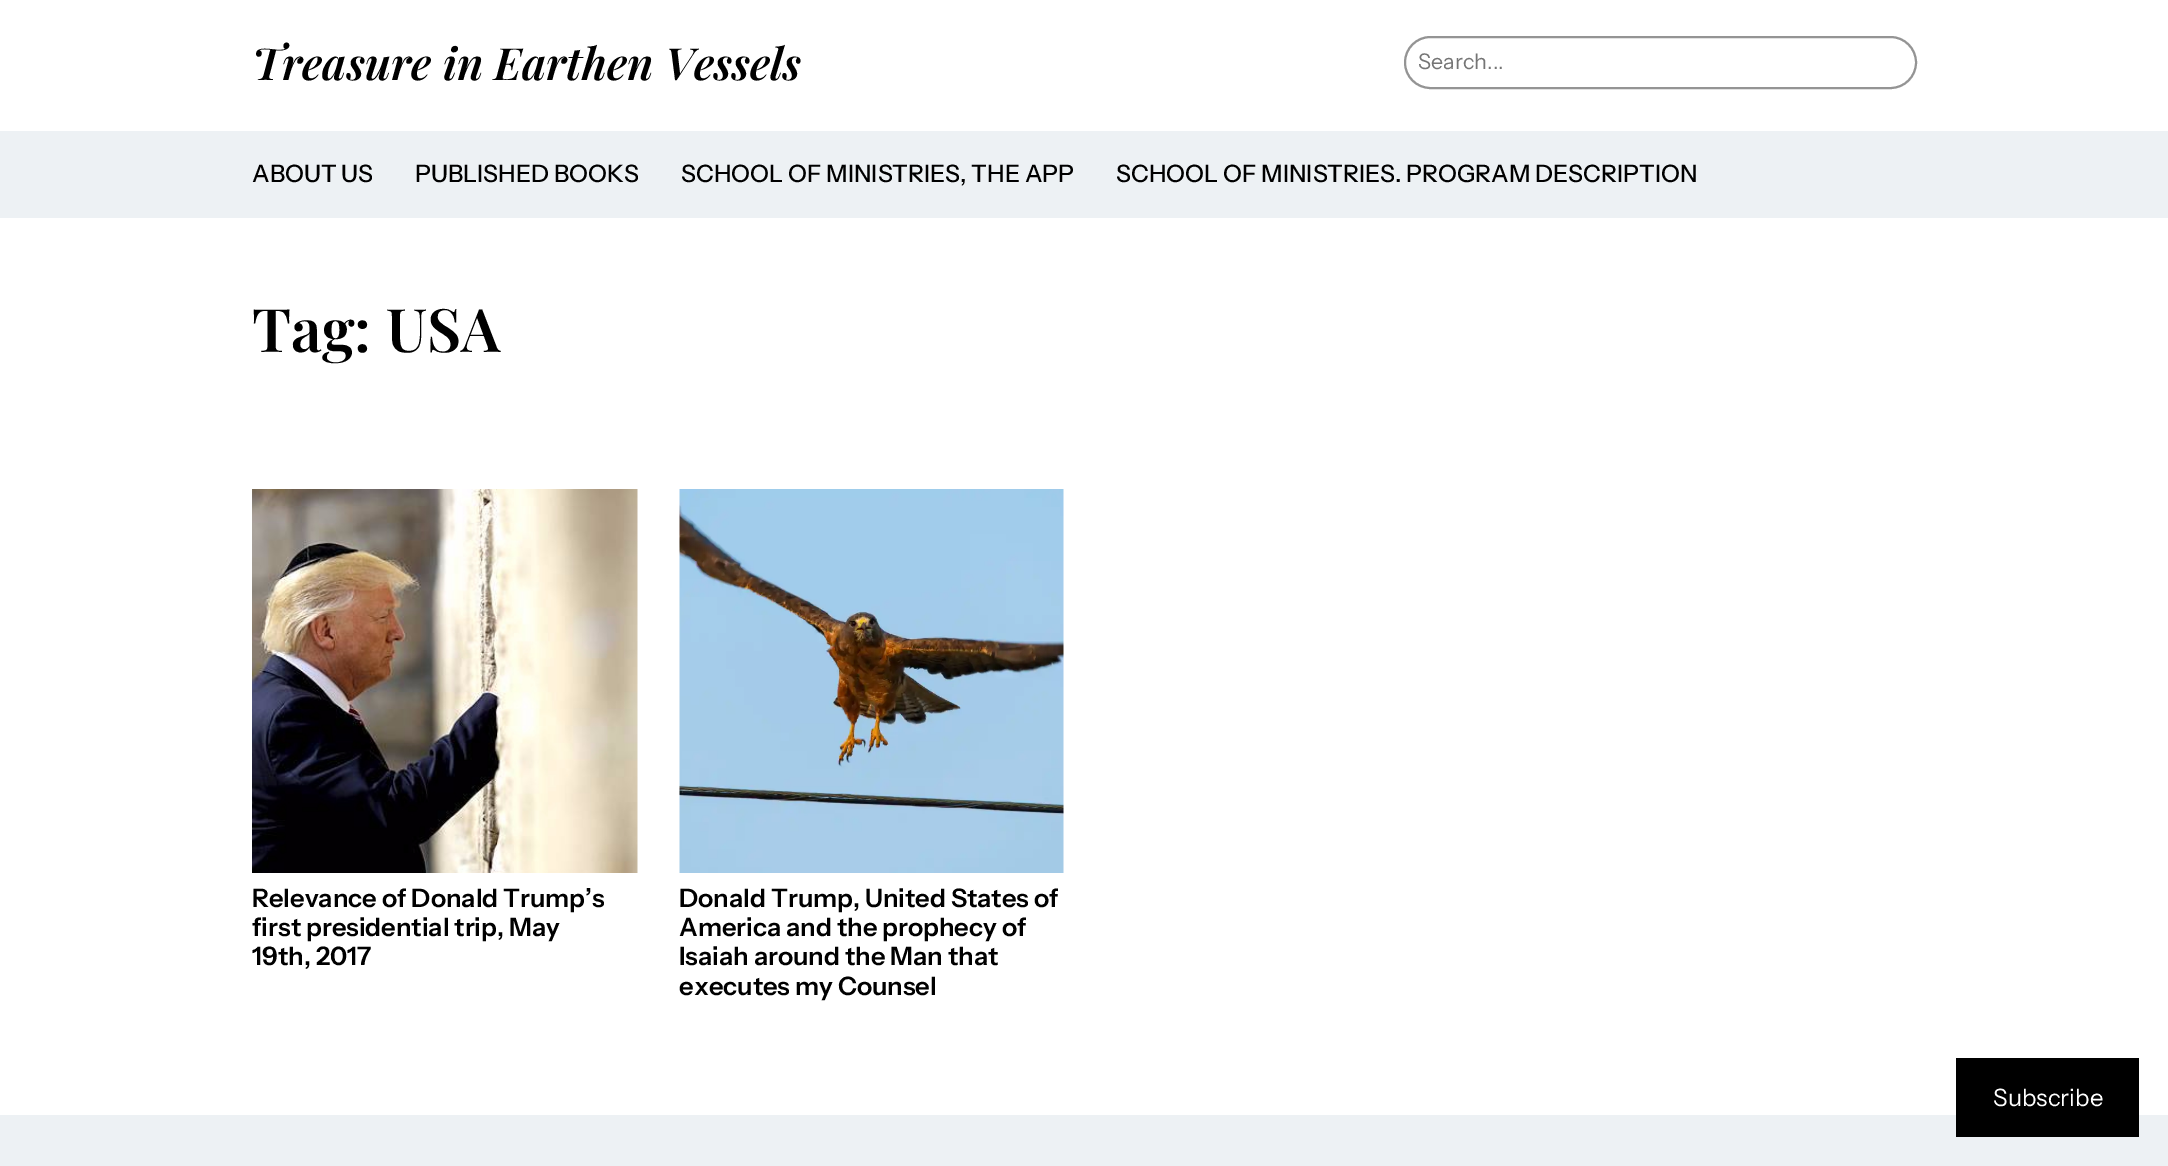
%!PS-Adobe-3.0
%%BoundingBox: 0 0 2168 1166
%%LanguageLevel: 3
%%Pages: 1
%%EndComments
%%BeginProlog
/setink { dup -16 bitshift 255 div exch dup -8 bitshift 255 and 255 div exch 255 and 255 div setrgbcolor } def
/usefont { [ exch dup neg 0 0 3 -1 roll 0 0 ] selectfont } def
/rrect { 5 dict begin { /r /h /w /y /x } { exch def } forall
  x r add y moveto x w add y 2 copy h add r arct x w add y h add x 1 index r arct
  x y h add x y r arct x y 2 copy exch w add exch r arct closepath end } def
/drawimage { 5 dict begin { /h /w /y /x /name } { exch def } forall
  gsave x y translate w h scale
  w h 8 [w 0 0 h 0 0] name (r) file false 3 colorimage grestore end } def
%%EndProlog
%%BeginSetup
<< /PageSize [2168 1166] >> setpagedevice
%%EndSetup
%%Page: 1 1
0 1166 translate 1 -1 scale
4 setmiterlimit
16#FFFFFF setink
0 0 2168 1166 rectfill
/PlayfairDisplay-SemiBoldItalic 44.4 usefont
16#000000 setink
252 80 moveto (Treasure in Earthen Vessels) show
16#949494 setink
2 setlinewidth
1405 37 511 51 25.5 rrect stroke
/InstrumentSans-Regular 21.5 usefont
16#757575 setink
1418 69 moveto (Search...) show
16#EDF1F4 setink
0 131 2168 87 rectfill
/InstrumentSans-Medium 24 usefont
16#000000 setink
[
    [(ABOUT US) 252 182]
    [(PUBLISHED BOOKS) 415 182]
    [(SCHOOL OF MINISTRIES, THE APP) 681 182]
    [(SCHOOL OF MINISTRIES. PROGRAM DESCRIPTION) 1116 182]
] { aload pop moveto show } forall
/PlayfairDisplay-SemiBold 60 usefont
252 352 moveto (Tag: USA) show
(img1.raw) 252 489 386 384 drawimage
/InstrumentSans-SemiBold 25.5 usefont
[
    [(Relevance of Donald Trump’s) 252 907]
    [(first presidential trip, May) 252 936]
    [(19th, 2017) 252 965]
] { aload pop moveto show } forall
(img2.raw) 679 489 385 384 drawimage
[
    [(Donald Trump, United States of) 679 907]
    [(America and the prophecy of) 679 936]
    [(Isaiah around the Man that) 679 965]
    [(executes my Counsel) 679 995]
] { aload pop moveto show } forall
16#EDF1F4 setink
0 1115 2168 51 rectfill
16#000000 setink
1956 1058 183 79 rectfill
/InstrumentSans-Regular 24 usefont
16#FFFFFF setink
1993 1106 moveto (Subscribe) show
showpage
%%EOF
